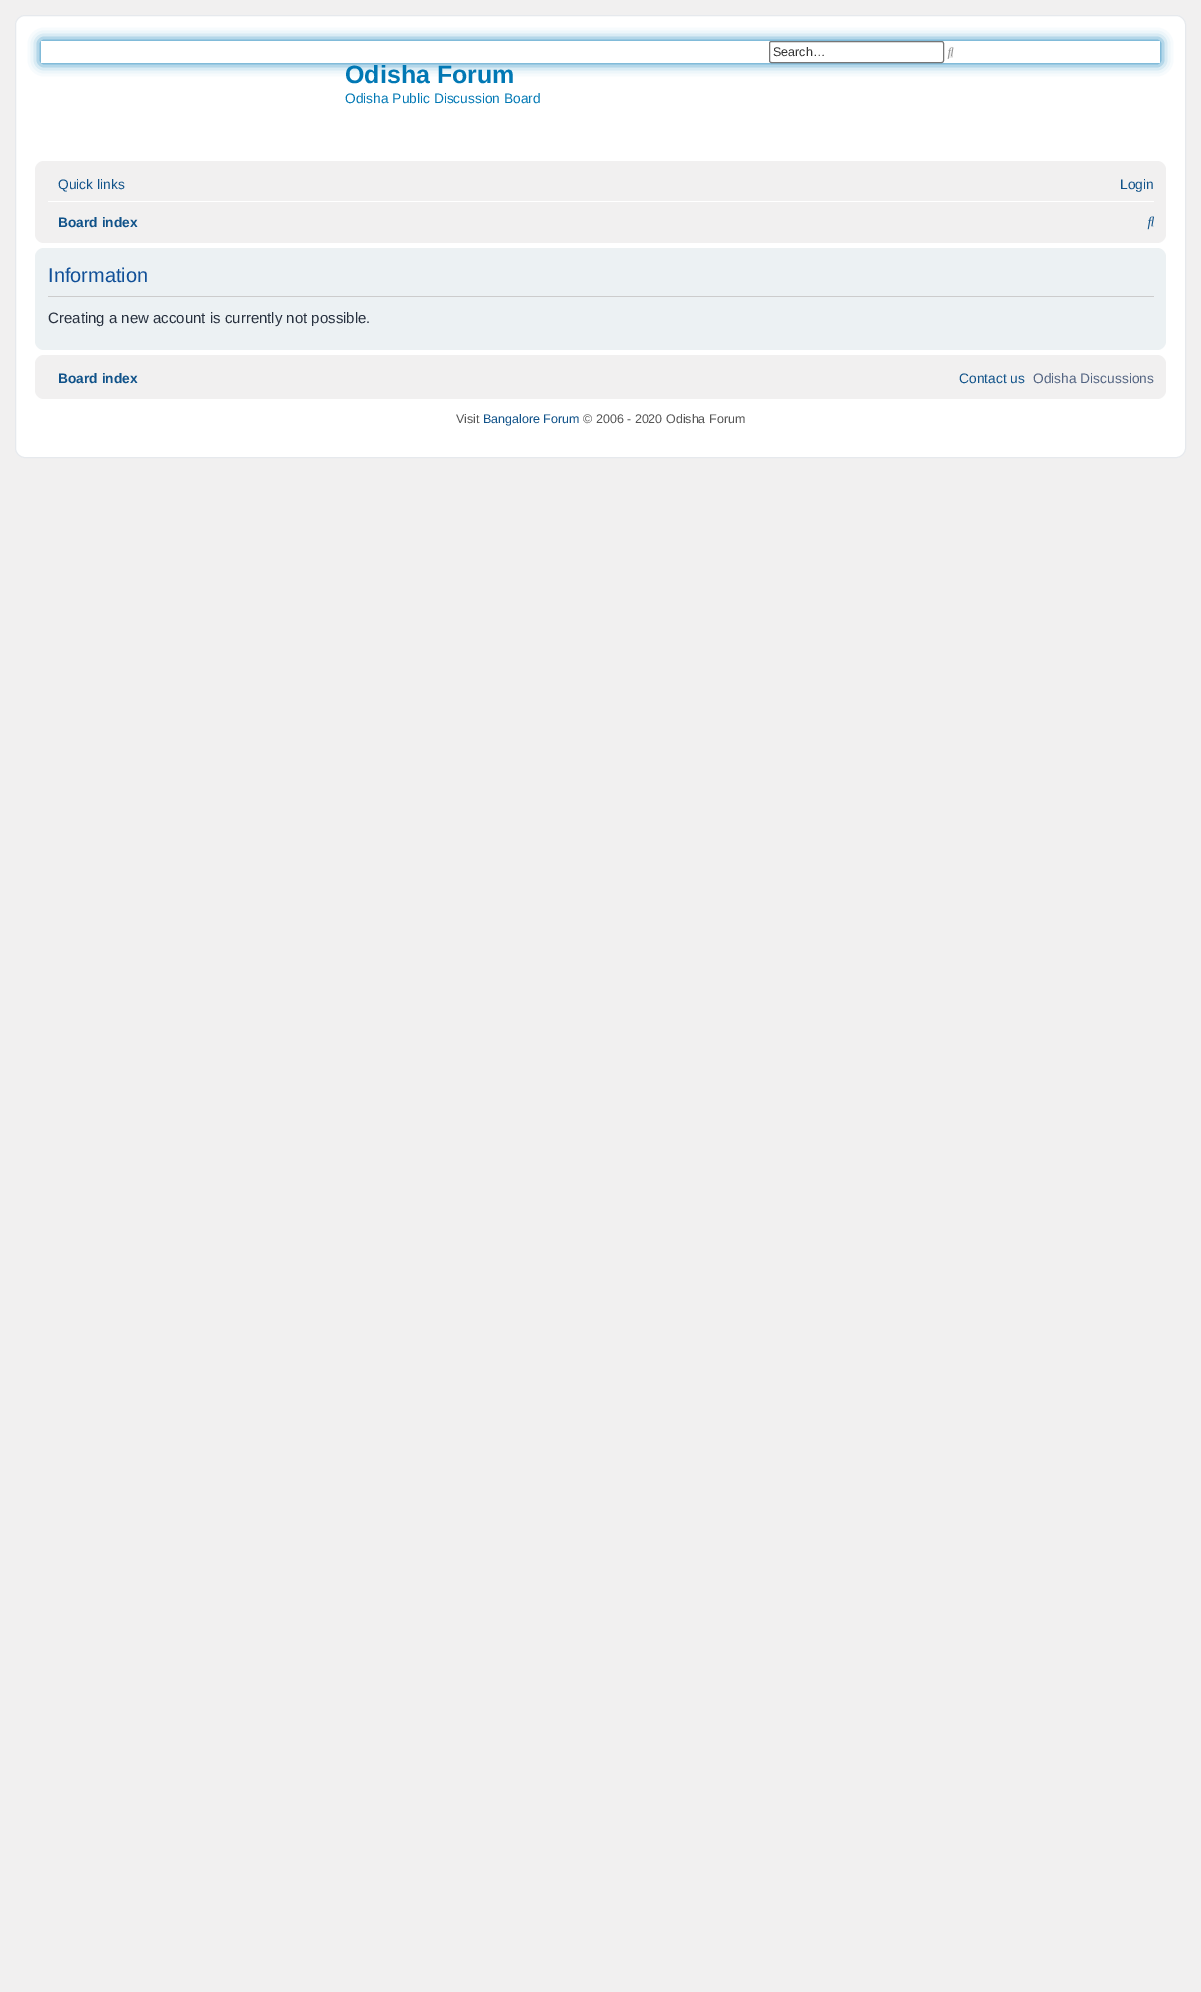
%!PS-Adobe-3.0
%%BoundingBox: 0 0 1201 1992
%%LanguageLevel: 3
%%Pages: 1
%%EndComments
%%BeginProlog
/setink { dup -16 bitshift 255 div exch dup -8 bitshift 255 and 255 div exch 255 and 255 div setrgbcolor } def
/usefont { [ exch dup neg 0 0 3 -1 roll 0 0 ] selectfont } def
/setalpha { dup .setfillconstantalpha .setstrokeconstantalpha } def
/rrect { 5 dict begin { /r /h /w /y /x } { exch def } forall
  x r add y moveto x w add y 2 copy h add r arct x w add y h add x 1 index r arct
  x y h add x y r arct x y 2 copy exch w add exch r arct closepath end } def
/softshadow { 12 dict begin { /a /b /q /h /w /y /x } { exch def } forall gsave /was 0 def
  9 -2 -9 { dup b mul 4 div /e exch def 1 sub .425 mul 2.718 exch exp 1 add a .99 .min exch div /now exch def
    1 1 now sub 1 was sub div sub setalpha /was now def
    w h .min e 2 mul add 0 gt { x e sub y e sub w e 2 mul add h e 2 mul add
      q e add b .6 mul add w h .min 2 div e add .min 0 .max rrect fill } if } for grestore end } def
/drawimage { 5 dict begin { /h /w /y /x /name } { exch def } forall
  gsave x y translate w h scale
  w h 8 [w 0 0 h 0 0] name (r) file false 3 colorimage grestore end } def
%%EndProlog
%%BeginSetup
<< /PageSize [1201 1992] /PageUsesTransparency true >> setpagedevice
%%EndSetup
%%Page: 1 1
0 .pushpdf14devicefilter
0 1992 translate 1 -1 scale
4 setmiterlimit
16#F1F0F0 setink
0 0 1201 1992 rectfill
16#FFFFFF setink
15.5 15.5 1170 442 9.5 rrect gsave fill grestore
16#E6E9ED setink
stroke
gsave
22 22 moveto 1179 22 lineto 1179 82 lineto 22 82 lineto closepath 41 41 moveto 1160 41 lineto 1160 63 lineto 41 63 lineto closepath eoclip newpath
16#0075B0 setink
41 41 1119 22 0 6 1 softshadow
grestore
16#FFFFFF setink
769.5 41.5 174 21 2 rrect gsave fill grestore
16#767676 setink
stroke
/LiberationSans-Regular 12.5 usefont
16#333333 setink
773 56 moveto (Search…) show
gsave 949 45 moveto 953 45 lineto 953 59 lineto 949 59 lineto closepath clip newpath
<< /ShadingType 2 /ColorSpace /DeviceRGB /Coords [951 45 951 59] /Extend [true true] /Function << /FunctionType 2 /Domain [0 1] /C0 [1 1 1] /C1 [0.914 0.914 0.914] /N 1 >> >> shfill grestore
16#FFFFFF setink
948.5 45.5 5 13 rectstroke
(img1.raw) 947 47 7 12 drawimage
/LiberationSans-Bold 25 usefont
16#0178B4 setink
345 83 moveto (Odisha Forum) show
/LiberationSans-Regular 13.75 usefont
345 103 moveto (Odisha Public Discussion Board) show
16#F1F0F0 setink
35 161 1131 82 9 rrect fill
16#105289 setink
58 189 moveto (Quick links) show
1120 189 moveto (Login) show
16#FFFFFF setink
48 201 1106 1 rectfill
/LiberationSans-Bold 13.75 usefont
16#105289 setink
58 227 moveto (Board index) show
(img2.raw) 1147 216 7 14 drawimage
16#ECF1F3 setink
35 248 1131 102 9 rrect fill
16#CCCCCC setink
48 296 1106 1 rectfill
/LiberationSans-Regular 20 usefont
16#115098 setink
48 282 moveto (Information) show
/LiberationSans-Regular 15 usefont
16#28313F setink
48 323 moveto (Creating a new account is currently not possible.) show
16#F1F0F0 setink
35 355 1131 44 9 rrect fill
/LiberationSans-Bold 13.75 usefont
16#105289 setink
58 383 moveto (Board index) show
/LiberationSans-Regular 13.75 usefont
959 383 moveto (Contact us) show
16#536482 setink
1033 383 moveto (Odisha Discussions) show
/LiberationSans-Regular 12.5 usefont
16#555555 setink
456 423 moveto (Visit) show
16#105289 setink
483 423 moveto (Bangalore Forum) show
16#555555 setink
583 423 moveto (© 2006 - 2020 Odisha Forum) show
.poppdf14devicefilter showpage
%%EOF
